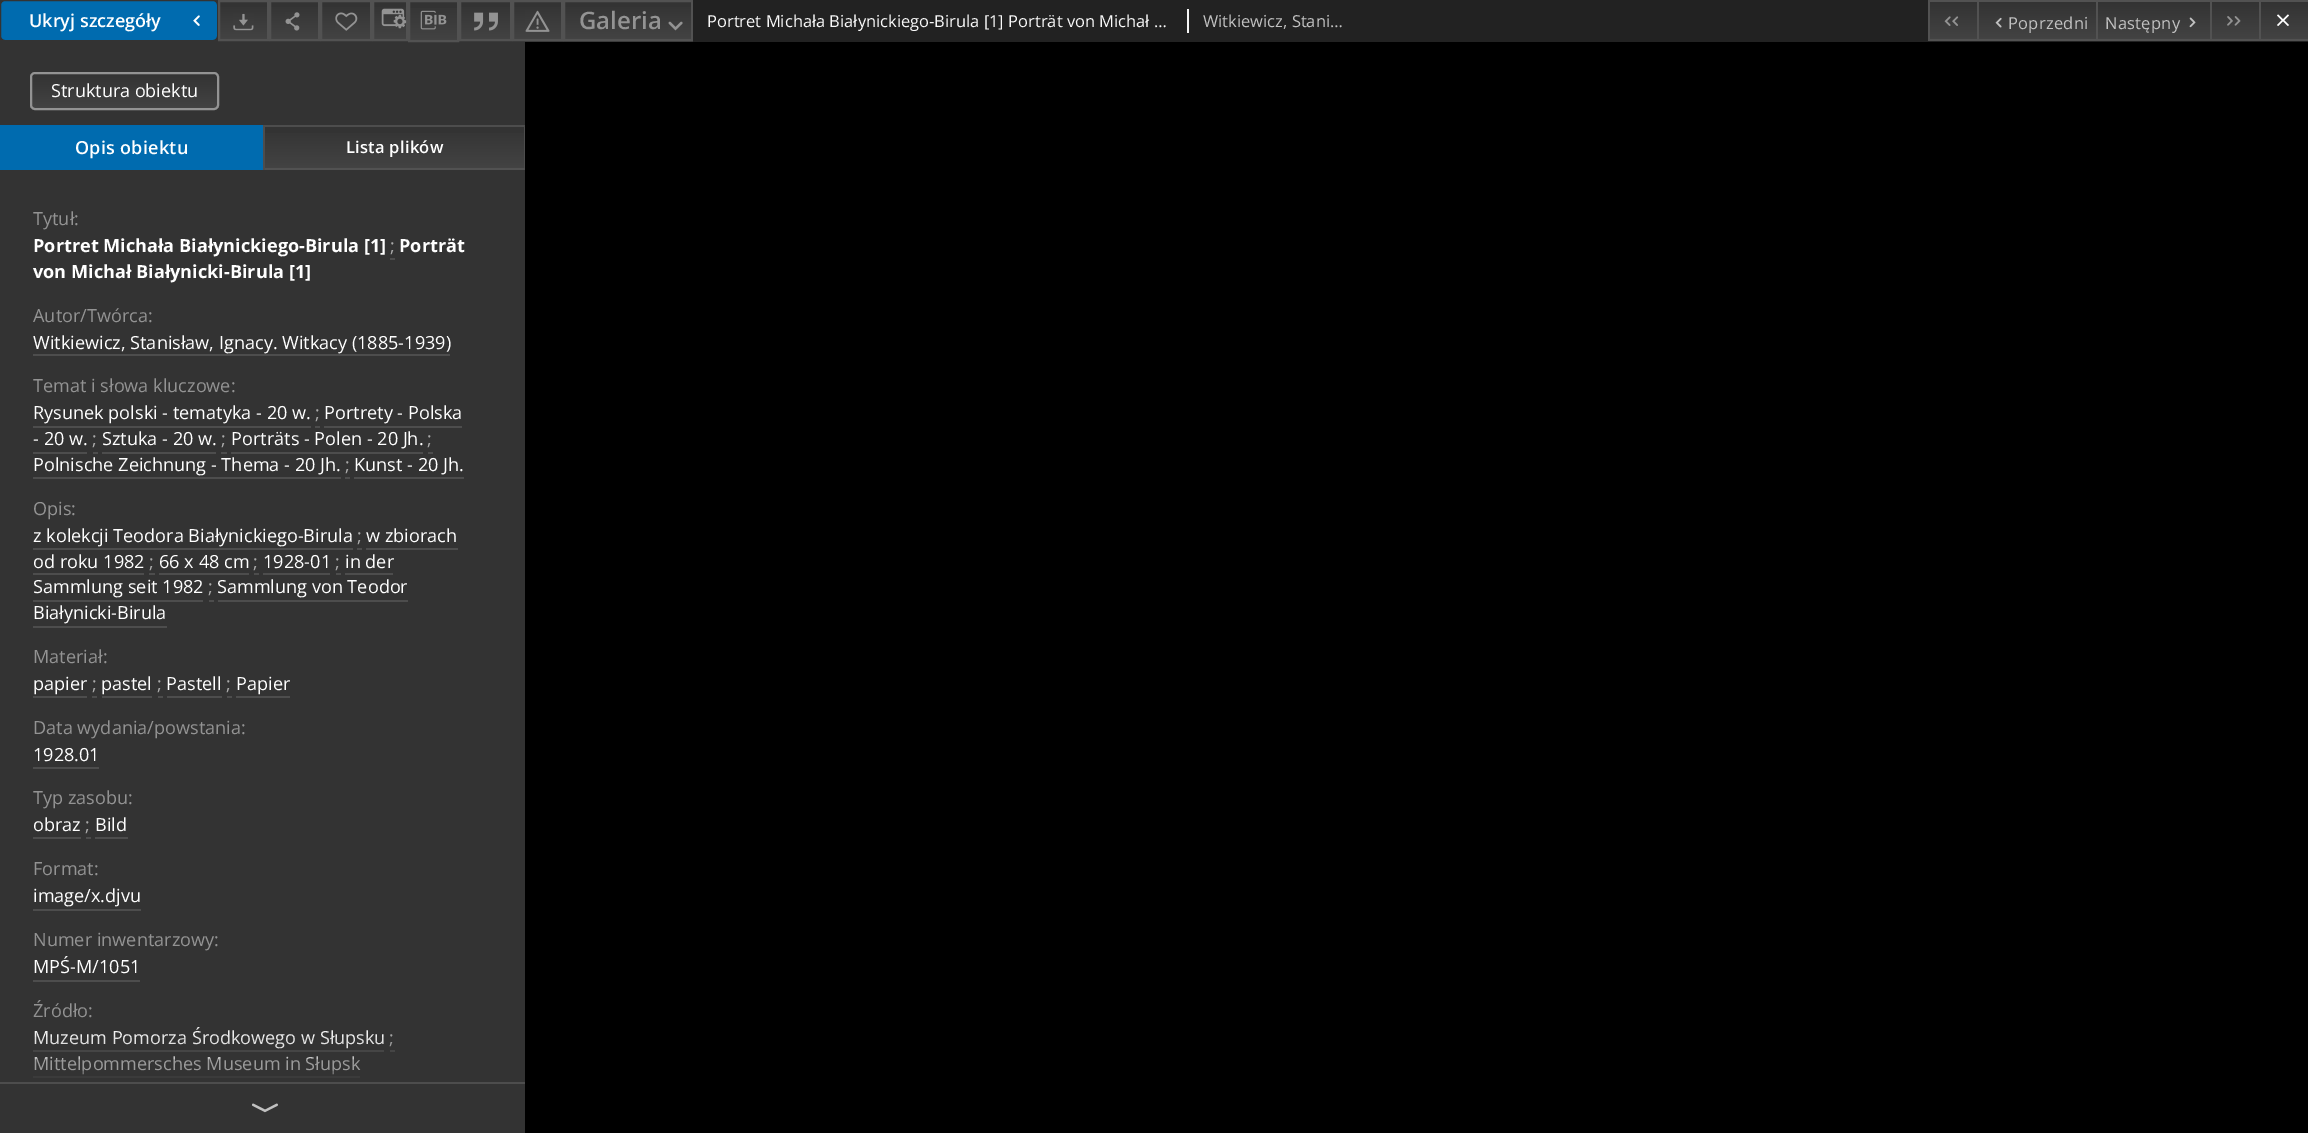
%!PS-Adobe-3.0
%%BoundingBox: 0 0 2308 1133
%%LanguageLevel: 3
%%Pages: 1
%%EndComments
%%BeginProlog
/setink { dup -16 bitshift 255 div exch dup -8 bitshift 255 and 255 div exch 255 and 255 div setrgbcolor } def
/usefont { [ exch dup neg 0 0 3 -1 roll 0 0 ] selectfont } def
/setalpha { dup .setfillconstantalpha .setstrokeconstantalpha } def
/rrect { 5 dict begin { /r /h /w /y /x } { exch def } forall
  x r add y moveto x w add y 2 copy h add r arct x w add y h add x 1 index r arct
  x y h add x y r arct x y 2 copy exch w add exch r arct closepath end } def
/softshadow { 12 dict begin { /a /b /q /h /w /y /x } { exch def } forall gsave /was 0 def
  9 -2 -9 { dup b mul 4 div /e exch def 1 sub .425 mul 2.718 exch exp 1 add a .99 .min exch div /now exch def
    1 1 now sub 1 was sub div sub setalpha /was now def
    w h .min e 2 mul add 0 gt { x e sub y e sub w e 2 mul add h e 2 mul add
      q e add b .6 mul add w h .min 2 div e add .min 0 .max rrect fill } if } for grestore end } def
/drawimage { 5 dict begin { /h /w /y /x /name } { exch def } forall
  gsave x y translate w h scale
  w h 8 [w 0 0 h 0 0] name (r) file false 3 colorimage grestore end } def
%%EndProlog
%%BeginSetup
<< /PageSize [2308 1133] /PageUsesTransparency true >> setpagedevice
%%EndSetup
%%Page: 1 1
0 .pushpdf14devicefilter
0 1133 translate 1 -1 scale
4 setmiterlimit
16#333333 setink
0 0 2308 1133 rectfill
16#006BAF setink
1 1 216 39 4 rrect gsave fill grestore
2 setlinewidth
stroke
(img1.raw) 193 15 7 11 drawimage
16#333333 setink
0 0 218 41 5 rrect stroke
/OpenSans-SemiBold 18 usefont
16#FFFFFF setink
29 27 moveto (Ukryj szczegóły) show
gsave 220 7 moveto 267 7 lineto 267 39 lineto 220 39 lineto closepath clip newpath
<< /ShadingType 2 /ColorSpace /DeviceRGB /Coords [243 1.5 243 39] /Extend [true true] /Function << /FunctionType 2 /Domain [0 1] /C0 [0.2 0.2 0.2] /C1 [0.263 0.263 0.263] /N 1 >> >> shfill grestore
16#525252 setink
219 1 49 39 rectstroke
(img2.raw) 233 13 21 18 drawimage
gsave 271 7 moveto 318 7 lineto 318 39 lineto 271 39 lineto closepath clip newpath
<< /ShadingType 2 /ColorSpace /DeviceRGB /Coords [294 1.5 294 39] /Extend [true true] /Function << /FunctionType 2 /Domain [0 1] /C0 [0.2 0.2 0.2] /C1 [0.263 0.263 0.263] /N 1 >> >> shfill grestore
270 1 49 39 rectstroke
(img3.raw) 285 12 15 19 drawimage
gsave 322 7 moveto 370 7 lineto 370 39 lineto 322 39 lineto closepath clip newpath
<< /ShadingType 2 /ColorSpace /DeviceRGB /Coords [346 1.5 346 39] /Extend [true true] /Function << /FunctionType 2 /Domain [0 1] /C0 [0.2 0.2 0.2] /C1 [0.263 0.263 0.263] /N 1 >> >> shfill grestore
321 1 50 39 rectstroke
(img4.raw) 335 12 23 19 drawimage
gsave 374 7 moveto 406 7 lineto 406 39 lineto 374 39 lineto closepath clip newpath
<< /ShadingType 2 /ColorSpace /DeviceRGB /Coords [390 1.5 390 39] /Extend [true true] /Function << /FunctionType 2 /Domain [0 1] /C0 [0.2 0.2 0.2] /C1 [0.263 0.263 0.263] /N 1 >> >> shfill grestore
373 1 34 39 rectstroke
(img5.raw) 381 8 26 21 drawimage
gsave 410 8 moveto 457 8 lineto 457 40 lineto 410 40 lineto closepath clip newpath
<< /ShadingType 2 /ColorSpace /DeviceRGB /Coords [434 1.5 434 41] /Extend [true true] /Function << /FunctionType 2 /Domain [0 1] /C0 [0.2 0.2 0.2] /C1 [0.263 0.263 0.263] /N 1 >> >> shfill grestore
409 1 49 40 rectstroke
(img6.raw) 420 10 27 20 drawimage
gsave 461 7 moveto 510 7 lineto 510 39 lineto 461 39 lineto closepath clip newpath
<< /ShadingType 2 /ColorSpace /DeviceRGB /Coords [485 1.5 485 39] /Extend [true true] /Function << /FunctionType 2 /Domain [0 1] /C0 [0.2 0.2 0.2] /C1 [0.263 0.263 0.263] /N 1 >> >> shfill grestore
460 1 51 39 rectstroke
(img7.raw) 474 12 24 19 drawimage
gsave 514 7 moveto 561 7 lineto 561 39 lineto 514 39 lineto closepath clip newpath
<< /ShadingType 2 /ColorSpace /DeviceRGB /Coords [537 1.5 537 39] /Extend [true true] /Function << /FunctionType 2 /Domain [0 1] /C0 [0.2 0.2 0.2] /C1 [0.263 0.263 0.263] /N 1 >> >> shfill grestore
513 1 49 39 rectstroke
(img8.raw) 525 10 25 22 drawimage
gsave 565 7 moveto 691 7 lineto 691 39 lineto 565 39 lineto closepath clip newpath
<< /ShadingType 2 /ColorSpace /DeviceRGB /Coords [628 1.5 628 39] /Extend [true true] /Function << /FunctionType 2 /Domain [0 1] /C0 [0.2 0.2 0.2] /C1 [0.263 0.263 0.263] /N 1 >> >> shfill grestore
564 1 128 39 rectstroke
/OpenSans-SemiBold 24 usefont
16#939393 setink
579 29 moveto (Galeria) show
(img9.raw) 668 21 15 10 drawimage
16#222222 setink
693 0 1615 42 rectfill
16#F5F5F5 setink
1187 9 2 24 rectfill
/OpenSans-Regular 16.5 usefont
16#F9F9F9 setink
707 27 moveto (Portret Michała Białynickiego-Birula [1] Porträt von Michał …) show
16#C1C1C1 setink
1203 27 moveto (Witkiewicz, Stani…) show
gsave 1930 2 moveto 1977 2 lineto 1977 39 lineto 1930 39 lineto closepath clip newpath
<< /ShadingType 2 /ColorSpace /DeviceRGB /Coords [1953 1.5 1953 39] /Extend [true true] /Function << /FunctionType 2 /Domain [0 1] /C0 [0.2 0.2 0.2] /C1 [0.263 0.263 0.263] /N 1 >> >> shfill grestore
[
    [1928 0 380 2 16#525252]
    [1928 39 380 2 16#525252]
    [1928 0 2 41 16#525252]
] { aload pop setink rectfill } forall
(img10.raw) 1944 16 7 10 drawimage
(img11.raw) 1952 16 7 10 drawimage
gsave 1979 2 moveto 2096 2 lineto 2096 39 lineto 1979 39 lineto closepath clip newpath
<< /ShadingType 2 /ColorSpace /DeviceRGB /Coords [2037 1.5 2037 39] /Extend [true true] /Function << /FunctionType 2 /Domain [0 1] /C0 [0.2 0.2 0.2] /C1 [0.263 0.263 0.263] /N 1 >> >> shfill grestore
1977 0 2 41 rectfill
(img12.raw) 1995 17 7 11 drawimage
16#C1C1C1 setink
2008 29 moveto 0.25 0 (Poprzedni) ashow
gsave 2098 2 moveto 2210 2 lineto 2210 39 lineto 2098 39 lineto closepath clip newpath
<< /ShadingType 2 /ColorSpace /DeviceRGB /Coords [2153 1.5 2153 39] /Extend [true true] /Function << /FunctionType 2 /Domain [0 1] /C0 [0.2 0.2 0.2] /C1 [0.263 0.263 0.263] /N 1 >> >> shfill grestore
16#525252 setink
2096 0 2 41 rectfill
16#C1C1C1 setink
2105 29 moveto 0.25 0 (Następny) ashow
(img13.raw) 2189 17 7 11 drawimage
gsave 2212 2 moveto 2259 2 lineto 2259 39 lineto 2212 39 lineto closepath clip newpath
<< /ShadingType 2 /ColorSpace /DeviceRGB /Coords [2235 1.5 2235 39] /Extend [true true] /Function << /FunctionType 2 /Domain [0 1] /C0 [0.2 0.2 0.2] /C1 [0.263 0.263 0.263] /N 1 >> >> shfill grestore
16#525252 setink
2210 0 2 41 rectfill
(img14.raw) 2227 16 6 10 drawimage
(img15.raw) 2234 16 7 10 drawimage
gsave 2261 2 moveto 2308 2 lineto 2308 39 lineto 2261 39 lineto closepath clip newpath
<< /ShadingType 2 /ColorSpace /DeviceRGB /Coords [2285 1.5 2285 39] /Extend [true true] /Function << /FunctionType 2 /Domain [0 1] /C0 [0.2 0.2 0.2] /C1 [0.263 0.263 0.263] /N 1 >> >> shfill grestore
2259 0 2 41 rectfill
16#FFFFFF setink
2277 25 moveto 2288 14.5 lineto 2289 15.5 lineto 2278 26 lineto closepath fill
2278 14.5 moveto 2289 25 lineto 2288 26 lineto 2277 15.5 lineto closepath fill
gsave
30 72 189 38 5 rrect clip newpath
gsave 30 74 moveto 219 74 lineto 219 108 lineto 30 108 lineto closepath clip newpath
<< /ShadingType 2 /ColorSpace /DeviceRGB /Coords [125 73 125 108] /Extend [true true] /Function << /FunctionType 2 /Domain [0 1] /C0 [0.2 0.2 0.2] /C1 [0.263 0.263 0.263] /N 1 >> >> shfill grestore
grestore
16#939393 setink
31 73 187 36 4 rrect stroke
/OpenSans-Regular 18 usefont
16#FFFFFF setink
51 97 moveto (Struktura obiektu) show
16#006BAF setink
0 125 263 45 rectfill
/OpenSans-SemiBold 18 usefont
16#FFFFFF setink
75 154 moveto 0.25 0 (Opis obiektu) ashow
gsave 265 133 moveto 524 133 lineto 524 168 lineto 265 168 lineto closepath clip newpath
<< /ShadingType 2 /ColorSpace /DeviceRGB /Coords [394 126 394 168] /Extend [true true] /Function << /FunctionType 2 /Domain [0 1] /C0 [0.2 0.2 0.2] /C1 [0.263 0.263 0.263] /N 1 >> >> shfill grestore
[
    [263 125 262 2 16#4D4D4D]
    [524 125 1 45 16#4D4D4D]
    [263 168 262 2 16#525252]
    [263 125 2 45 16#4D4D4D]
] { aload pop setink rectfill } forall
/OpenSans-SemiBold 16.5 usefont
16#FFFFFF setink
346 153 moveto 0.25 0 (Lista plików) ashow
/OpenSans-Regular 18.1 usefont
16#939393 setink
33 225 moveto (Tytuł:) show
/OpenSans-Bold 18.1 usefont
16#FFFFFF setink
33 252 moveto (Portret Michała Białynickiego-Birula [1]) show
/OpenSans-Regular 18.1 usefont
16#ABABAB setink
390 252 moveto (;) show
16#4D4D4D setink
390 258 5 2 rectfill
/OpenSans-Bold 18.1 usefont
16#FFFFFF setink
399 252 moveto (Porträt) show
33 278 moveto (von Michał Białynicki-Birula [1]) show
/OpenSans-Regular 18.1 usefont
16#939393 setink
33 322 moveto (Autor/Twórca:) show
16#FFFFFF setink
33 349 moveto (Witkiewicz, Stanisław, Ignacy. Witkacy \(1885-1939\)) show
16#4D4D4D setink
33 354 417 2 rectfill
16#939393 setink
33 392 moveto (Temat i słowa kluczowe:) show
16#FFFFFF setink
33 419 moveto (Rysunek polski - tematyka - 20 w.) show
16#4D4D4D setink
33 426 278 2 rectfill
16#ABABAB setink
315 419 moveto (;) show
16#4D4D4D setink
315 426 5 2 rectfill
16#FFFFFF setink
324 419 moveto (Portrety - Polska) show
16#4D4D4D setink
324 426 138 2 rectfill
16#FFFFFF setink
33 445 moveto (- 20 w.) show
16#4D4D4D setink
33 452 54 2 rectfill
16#ABABAB setink
92 445 moveto (;) show
16#4D4D4D setink
93 452 5 2 rectfill
16#FFFFFF setink
102 445 moveto (Sztuka - 20 w.) show
16#4D4D4D setink
102 452 114 2 rectfill
16#ABABAB setink
221 445 moveto (;) show
16#4D4D4D setink
221 452 6 2 rectfill
16#FFFFFF setink
231 445 moveto (Porträts - Polen - 20 Jh.) show
16#4D4D4D setink
231 452 192 2 rectfill
16#ABABAB setink
427 445 moveto (;) show
16#4D4D4D setink
428 452 5 2 rectfill
16#FFFFFF setink
33 471 moveto (Polnische Zeichnung - Thema - 20 Jh.) show
16#4D4D4D setink
33 477 308 2 rectfill
16#ABABAB setink
345 471 moveto (;) show
16#4D4D4D setink
345 477 5 2 rectfill
16#FFFFFF setink
354 471 moveto (Kunst - 20 Jh.) show
16#4D4D4D setink
354 477 110 2 rectfill
16#939393 setink
33 515 moveto (Opis:) show
16#FFFFFF setink
33 542 moveto (z kolekcji Teodora Białynickiego-Birula) show
16#4D4D4D setink
33 548 320 2 rectfill
16#ABABAB setink
357 542 moveto (;) show
16#4D4D4D setink
357 548 5 2 rectfill
16#FFFFFF setink
366 542 moveto (w zbiorach) show
16#4D4D4D setink
366 548 92 2 rectfill
16#FFFFFF setink
33 568 moveto (od roku 1982) show
16#4D4D4D setink
33 573 111 2 rectfill
16#ABABAB setink
149 568 moveto (;) show
16#4D4D4D setink
149 573 6 2 rectfill
16#FFFFFF setink
159 568 moveto (66 x 48 cm) show
16#4D4D4D setink
159 573 90 2 rectfill
16#ABABAB setink
253 568 moveto (;) show
16#4D4D4D setink
254 573 5 2 rectfill
16#FFFFFF setink
263 568 moveto (1928-01) show
16#4D4D4D setink
263 573 67 2 rectfill
16#ABABAB setink
335 568 moveto (;) show
16#4D4D4D setink
336 573 5 2 rectfill
16#FFFFFF setink
345 568 moveto (in der) show
16#4D4D4D setink
345 573 48 2 rectfill
16#FFFFFF setink
33 593 moveto (Sammlung seit 1982) show
16#4D4D4D setink
33 600 170 2 rectfill
16#ABABAB setink
208 593 moveto (;) show
16#4D4D4D setink
209 600 5 2 rectfill
16#FFFFFF setink
217 593 moveto (Sammlung von Teodor) show
16#4D4D4D setink
218 600 190 2 rectfill
16#FFFFFF setink
33 619 moveto (Białynicki-Birula) show
16#4D4D4D setink
33 626 134 2 rectfill
16#939393 setink
33 663 moveto (Materiał:) show
16#FFFFFF setink
33 690 moveto (papier) show
16#4D4D4D setink
33 696 54 2 rectfill
16#ABABAB setink
92 690 moveto (;) show
16#4D4D4D setink
92 696 5 2 rectfill
16#FFFFFF setink
101 690 moveto (pastel) show
16#4D4D4D setink
102 696 50 2 rectfill
16#ABABAB setink
157 690 moveto (;) show
16#4D4D4D setink
158 696 5 2 rectfill
16#FFFFFF setink
166 690 moveto (Pastell) show
16#4D4D4D setink
167 696 55 2 rectfill
16#ABABAB setink
226 690 moveto (;) show
16#4D4D4D setink
227 696 5 2 rectfill
16#FFFFFF setink
236 690 moveto (Papier) show
16#4D4D4D setink
236 696 54 2 rectfill
16#939393 setink
33 734 moveto (Data wydania/powstania:) show
16#FFFFFF setink
33 761 moveto (1928.01) show
16#4D4D4D setink
33 767 66 2 rectfill
16#939393 setink
33 804 moveto (Typ zasobu:) show
16#FFFFFF setink
33 831 moveto (obraz) show
16#4D4D4D setink
33 837 48 2 rectfill
16#ABABAB setink
85 831 moveto (;) show
16#4D4D4D setink
86 837 5 2 rectfill
16#FFFFFF setink
95 831 moveto (Bild) show
16#4D4D4D setink
95 837 33 2 rectfill
16#939393 setink
33 875 moveto (Format:) show
16#FFFFFF setink
33 902 moveto (image/x.djvu) show
16#4D4D4D setink
33 909 108 2 rectfill
16#939393 setink
33 946 moveto (Numer inwentarzowy:) show
16#FFFFFF setink
33 973 moveto (MPŚ-M/1051) show
16#4D4D4D setink
33 980 107 2 rectfill
16#939393 setink
33 1017 moveto (Źródło:) show
16#FFFFFF setink
33 1044 moveto (Muzeum Pomorza Środkowego w Słupsku) show
16#4D4D4D setink
33 1050 351 2 rectfill
16#ABABAB setink
389 1044 moveto (;) show
16#4D4D4D setink
390 1050 5 2 rectfill
16#FFFFFF setink
33 1070 moveto (Mittelpommersches Museum in Słupsk) show
16#4D4D4D setink
33 1076 327 2 rectfill
16#333333 setink
0 1065 525 53 0 22.5 1 softshadow
16#4D4D4D setink
0 1082 525 2 rectfill
(img16.raw) 252 1103 26 10 drawimage
16#000000 setink
525 42 1783 1091 rectfill
.poppdf14devicefilter showpage
%%EOF
